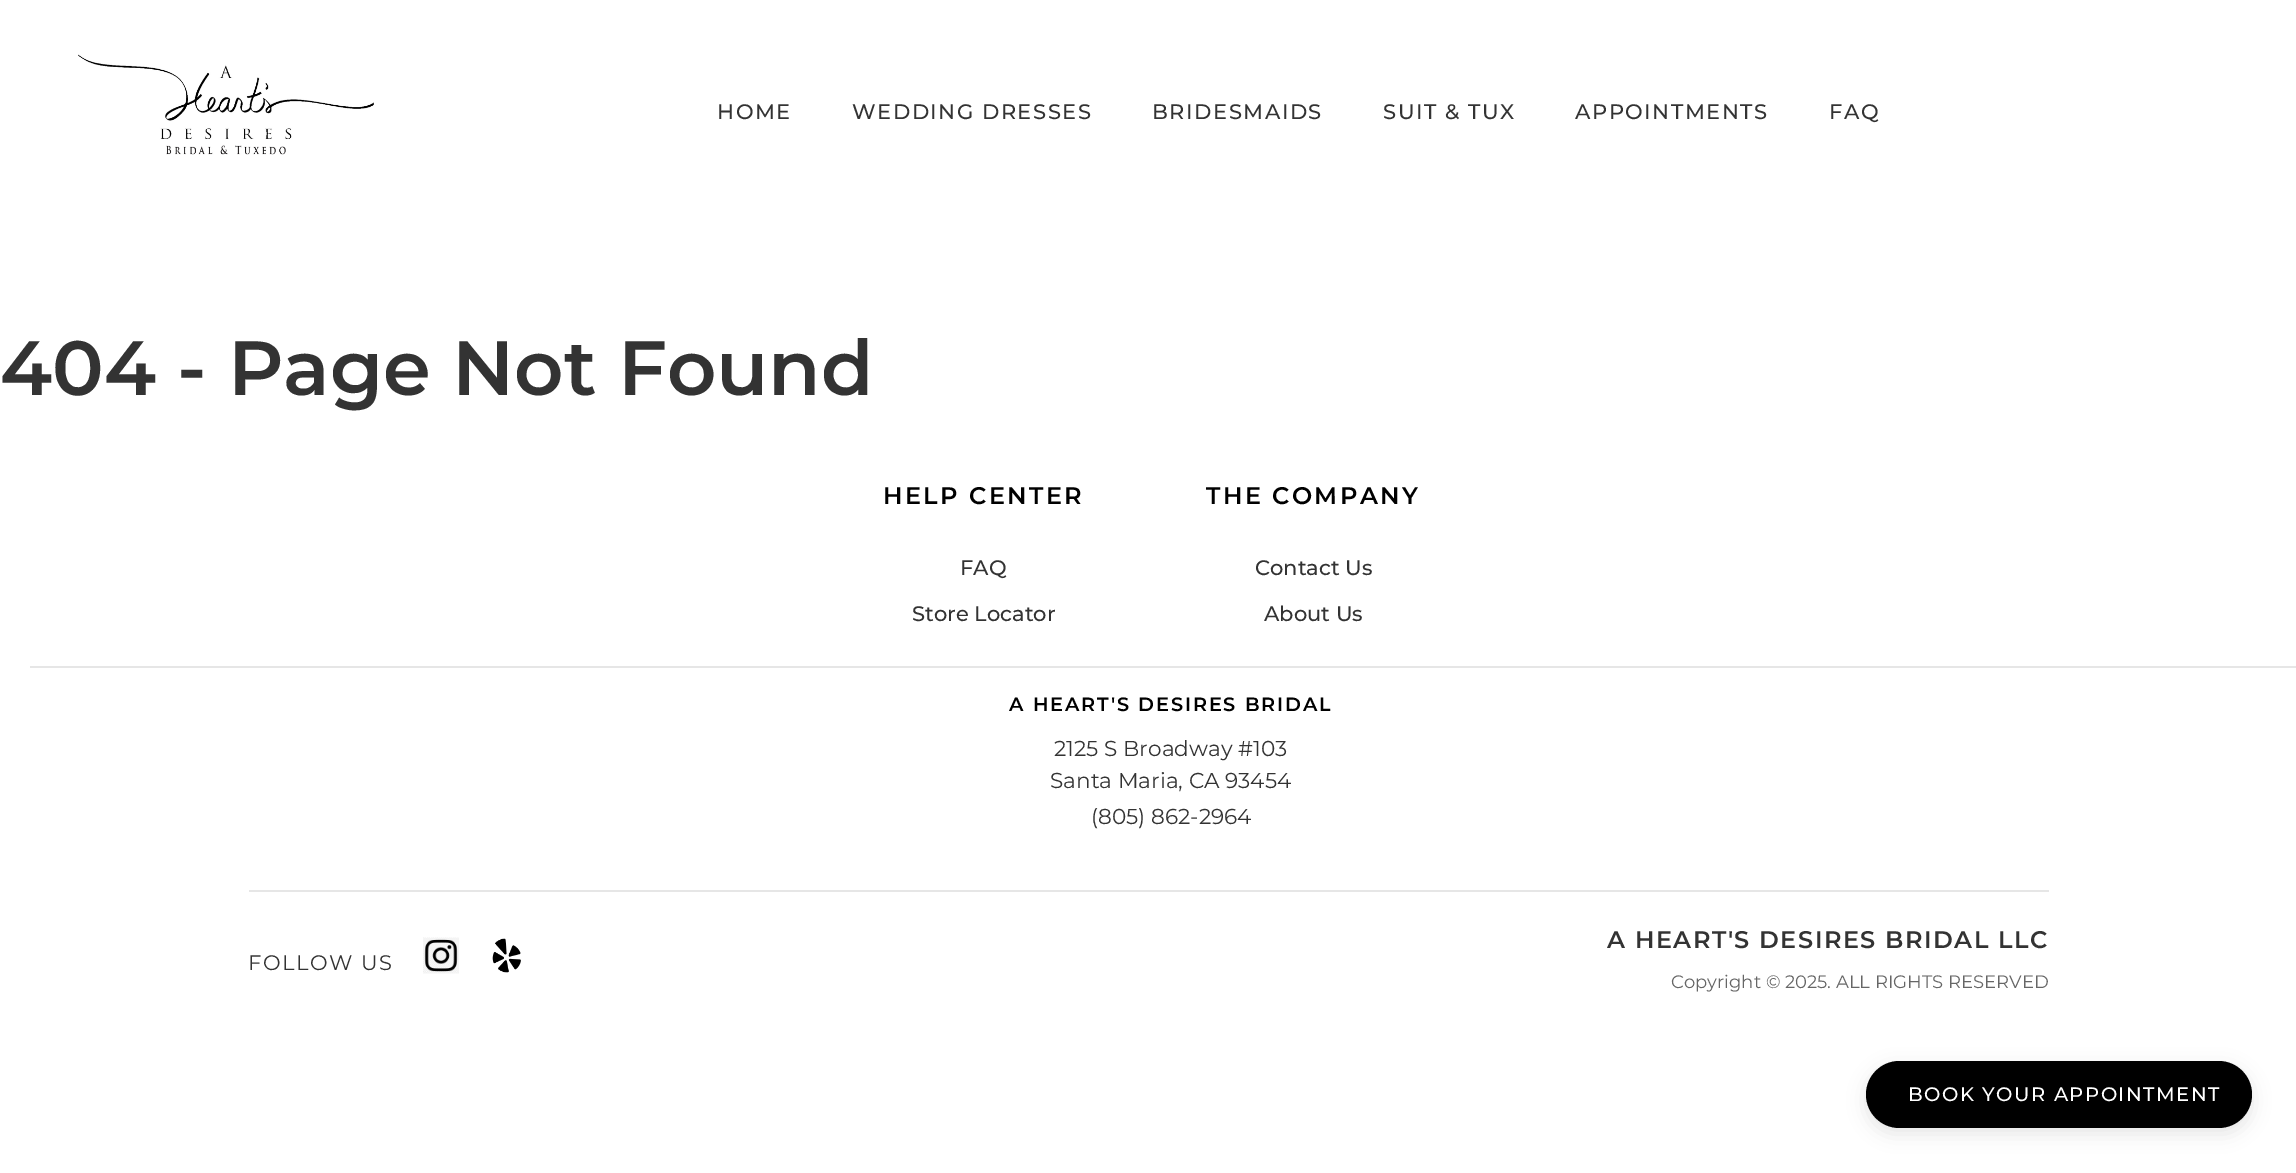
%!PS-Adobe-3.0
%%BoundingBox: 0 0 2296 1173
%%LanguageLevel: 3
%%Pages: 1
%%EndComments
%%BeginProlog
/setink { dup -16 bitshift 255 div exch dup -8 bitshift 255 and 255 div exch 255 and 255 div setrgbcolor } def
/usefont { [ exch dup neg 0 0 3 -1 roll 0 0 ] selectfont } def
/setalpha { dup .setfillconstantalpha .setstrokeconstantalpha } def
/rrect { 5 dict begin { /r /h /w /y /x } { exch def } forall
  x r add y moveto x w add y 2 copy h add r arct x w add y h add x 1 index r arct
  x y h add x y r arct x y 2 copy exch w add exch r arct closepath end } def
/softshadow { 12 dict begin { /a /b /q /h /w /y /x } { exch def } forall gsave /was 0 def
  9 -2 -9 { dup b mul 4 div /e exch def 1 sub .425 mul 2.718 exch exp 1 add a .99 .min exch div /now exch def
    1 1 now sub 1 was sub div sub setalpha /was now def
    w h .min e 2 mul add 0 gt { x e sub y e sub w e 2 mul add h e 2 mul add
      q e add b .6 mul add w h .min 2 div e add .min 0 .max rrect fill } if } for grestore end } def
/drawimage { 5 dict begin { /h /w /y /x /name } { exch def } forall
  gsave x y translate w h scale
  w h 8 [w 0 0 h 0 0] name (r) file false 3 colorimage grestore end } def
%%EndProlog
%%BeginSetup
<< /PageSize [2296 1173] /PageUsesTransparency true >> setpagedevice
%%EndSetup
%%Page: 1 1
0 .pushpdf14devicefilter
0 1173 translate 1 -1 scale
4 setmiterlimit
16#FFFFFF setink
0 0 2296 1173 rectfill
(img1.raw) 78 54 296 101 drawimage
/Montserrat-Medium 21 usefont
16#333333 setink
717 119 moveto 1.5 0 (HOME) ashow
852 119 moveto 1.5 0 (WEDDING DRESSES) ashow
1152 119 moveto 1.5 0 (BRIDESMAIDS) ashow
1383 119 moveto 1.5 0 (SUIT & TUX) ashow
1575 119 moveto 1.5 0 (APPOINTMENTS) ashow
1829 119 moveto 1.5 0 (FAQ) ashow
/Montserrat-SemiBold 76.75 usefont
0 395 moveto (404 - Page Not Found) show
/Montserrat-SemiBold 24 usefont
16#000000 setink
883 504 moveto 2.4 0 (HELP CENTER) ashow
/Montserrat-Medium 21 usefont
16#333333 setink
960 575 moveto (FAQ) show
912 621 moveto (Store Locator) show
/Montserrat-SemiBold 24 usefont
16#000000 setink
1206 504 moveto 2.4 0 (THE COMPANY) ashow
/Montserrat-Medium 21 usefont
16#333333 setink
1255 575 moveto (Contact Us) show
1264 621 moveto (About Us) show
16#E6E6E6 setink
30 666 2266 2 rectfill
/Montserrat-SemiBold 19.25 usefont
16#000000 setink
1009 711 moveto 1.9 0 (A HEART'S DESIRES BRIDAL) ashow
/Montserrat-Regular 21.6 usefont
16#333333 setink
[
    [(2125 S Broadway #103) 1054 756]
    [(Santa Maria, CA 93454) 1050 788]
    [(\(805\) 862-2964) 1091 824]
] { aload pop moveto show } forall
16#E6E6E6 setink
249 890 1800 2 rectfill
/Montserrat-Regular 21 usefont
16#333333 setink
248 970 moveto 1.5 0 (FOLLOW US) ashow
(img2.raw) 423 937 36 37 drawimage
(img3.raw) 492 938 29 35 drawimage
/Montserrat-SemiBold 24 usefont
1607 948 moveto 1.5 0 (A HEART'S DESIRES BRIDAL LLC) ashow
/Montserrat-Regular 18 usefont
16#666666 setink
1671 988 moveto (Copyright © 2025. ALL RIGHTS RESERVED) show
16#000000 setink
1866 1067 386 67 33.5 9 0.1 softshadow
1866 1061 386 67 33.5 rrect fill
/Montserrat-Medium 19.5 usefont
16#FFFFFF setink
1908 1101 moveto 1.5 0 (BOOK YOUR APPOINTMENT) ashow
.poppdf14devicefilter showpage
%%EOF
